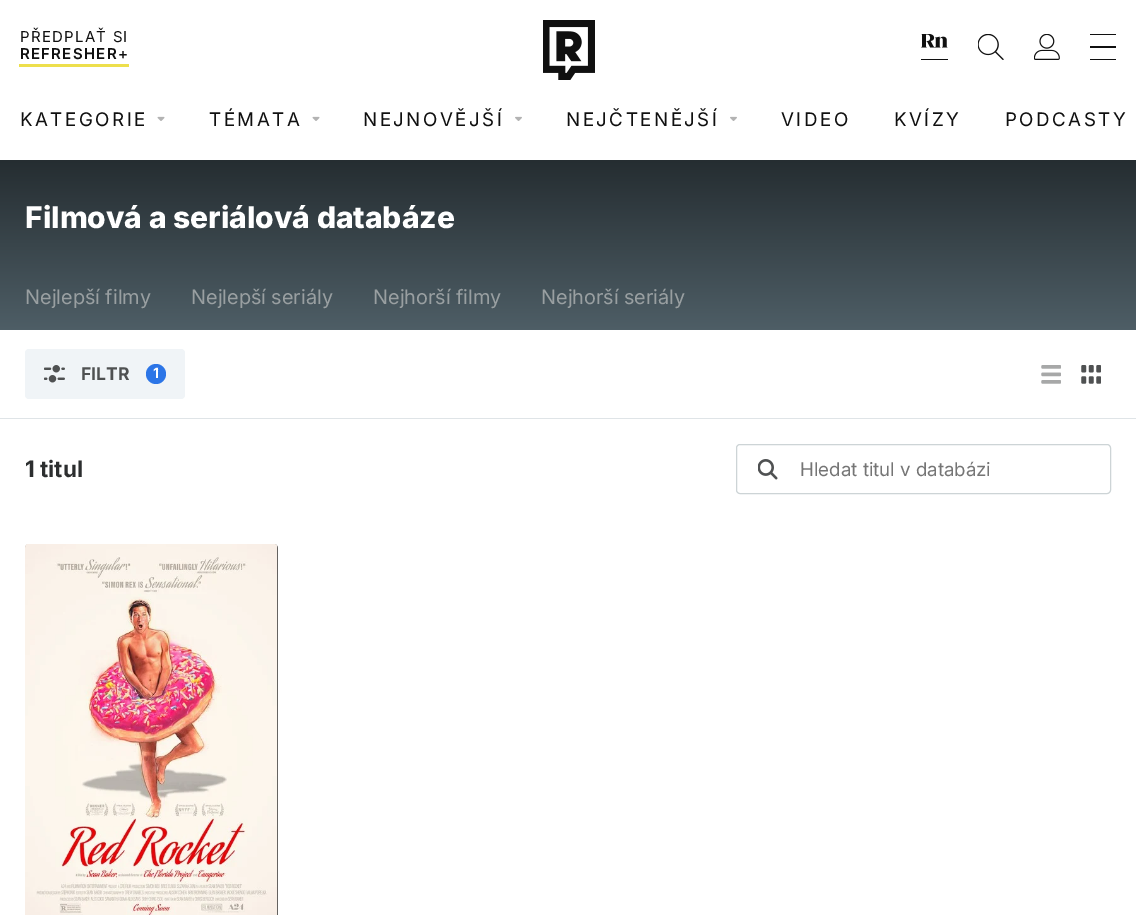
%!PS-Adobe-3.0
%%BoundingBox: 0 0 1136 915
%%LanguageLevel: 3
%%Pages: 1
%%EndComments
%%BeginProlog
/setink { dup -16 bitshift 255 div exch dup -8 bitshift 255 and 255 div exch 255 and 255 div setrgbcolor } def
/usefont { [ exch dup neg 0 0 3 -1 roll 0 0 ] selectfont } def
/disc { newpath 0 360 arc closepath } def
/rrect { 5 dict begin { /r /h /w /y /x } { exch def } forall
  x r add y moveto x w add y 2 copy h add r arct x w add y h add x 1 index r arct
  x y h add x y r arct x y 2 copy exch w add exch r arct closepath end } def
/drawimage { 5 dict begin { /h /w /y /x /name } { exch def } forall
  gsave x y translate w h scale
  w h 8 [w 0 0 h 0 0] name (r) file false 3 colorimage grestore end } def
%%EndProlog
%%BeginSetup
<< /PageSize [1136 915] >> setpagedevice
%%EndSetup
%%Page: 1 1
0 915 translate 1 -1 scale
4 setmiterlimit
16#FFFFFF setink
0 0 1136 915 rectfill
/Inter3-Regular 15 usefont
16#101010 setink
20 42 moveto 1.25 0 (PŘEDPLAŤ SI) ashow
/Inter-SemiBold 15 usefont
20 59 moveto 1.25 0 (REFRESHER+) ashow
16#EDDF4C setink
19 64 110 3 rectfill
(img1.raw) 543 20 52 60 drawimage
(img2.raw) 921 34 27 26 drawimage
(img3.raw) 978 34 26 26 drawimage
(img4.raw) 1034 34 26 26 drawimage
[
    [1090 34 26 1 16#101010]
    [1090 46 26 2 16#101010]
    [1090 59 26 1 16#101010]
] { aload pop setink rectfill } forall
/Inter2-Regular 18.75 usefont
20 126 moveto 2.5 0 (KATEGORIE) ashow
(img5.raw) 157 116 8 5 drawimage
209 126 moveto 2.5 0 (TÉMATA) ashow
(img5.raw) 312 116 8 5 drawimage
363 126 moveto 2.5 0 (NEJNOVĚJŠÍ) ashow
(img6.raw) 515 116 7 5 drawimage
566 126 moveto 2.5 0 (NEJČTENĚJŠÍ) ashow
(img6.raw) 730 116 7 5 drawimage
781 126 moveto 2.5 0 (VIDEO) ashow
894 126 moveto 2.5 0 (KVÍZY) ashow
1005 126 moveto 2.5 0 (PODCASTY) ashow
gsave 0 160 moveto 1136 160 lineto 1136 330 lineto 0 330 lineto closepath clip newpath
<< /ShadingType 2 /ColorSpace /DeviceRGB /Coords [568 160 568 330] /Extend [true true] /Function << /FunctionType 2 /Domain [0 1] /C0 [0.145 0.176 0.192] /C1 [0.306 0.369 0.4] /N 1 >> >> shfill grestore
/Inter-ExtraBold 30 usefont
16#FFFFFF setink
25 228 moveto (Filmová a seriálová databáze) show
/Inter-Regular 20 usefont
16#999FA1 setink
[
    [(Nejlepší filmy) 25 304]
    [(Nejlepší seriály) 191 304]
    [(Nejhorší filmy) 373 304]
    [(Nejhorší seriály) 541 304]
] { aload pop moveto show } forall
16#DFE4E7 setink
0 418 1136 1 rectfill
16#F0F4F7 setink
25 349 160 50 4 rrect fill
(img7.raw) 44 365 21 18 drawimage
/Inter-Bold 17.5 usefont
16#4F5152 setink
81 380 moveto (FILTR) show
16#2C75E7 setink
156 374 10 disc fill
/Inter-Bold 14 usefont
16#FFFFFF setink
153 378 moveto (1) show
(img8.raw) 1041 365 20 19 drawimage
(img9.raw) 1081 365 20 19 drawimage
/Inter-Bold 22.5 usefont
16#2C2E2F setink
25 477 moveto (1 titul) show
16#CDD4D6 setink
736.5 444.5 374 49 3.5 rrect stroke
(img10.raw) 758 459 20 21 drawimage
/Inter2-Regular 18.75 usefont
16#757575 setink
800 476 moveto (Hledat titul v databázi) show
16#333333 setink
25 544 253 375 4 rrect fill
(img11.raw) 25 544 253 371 drawimage
showpage
%%EOF
